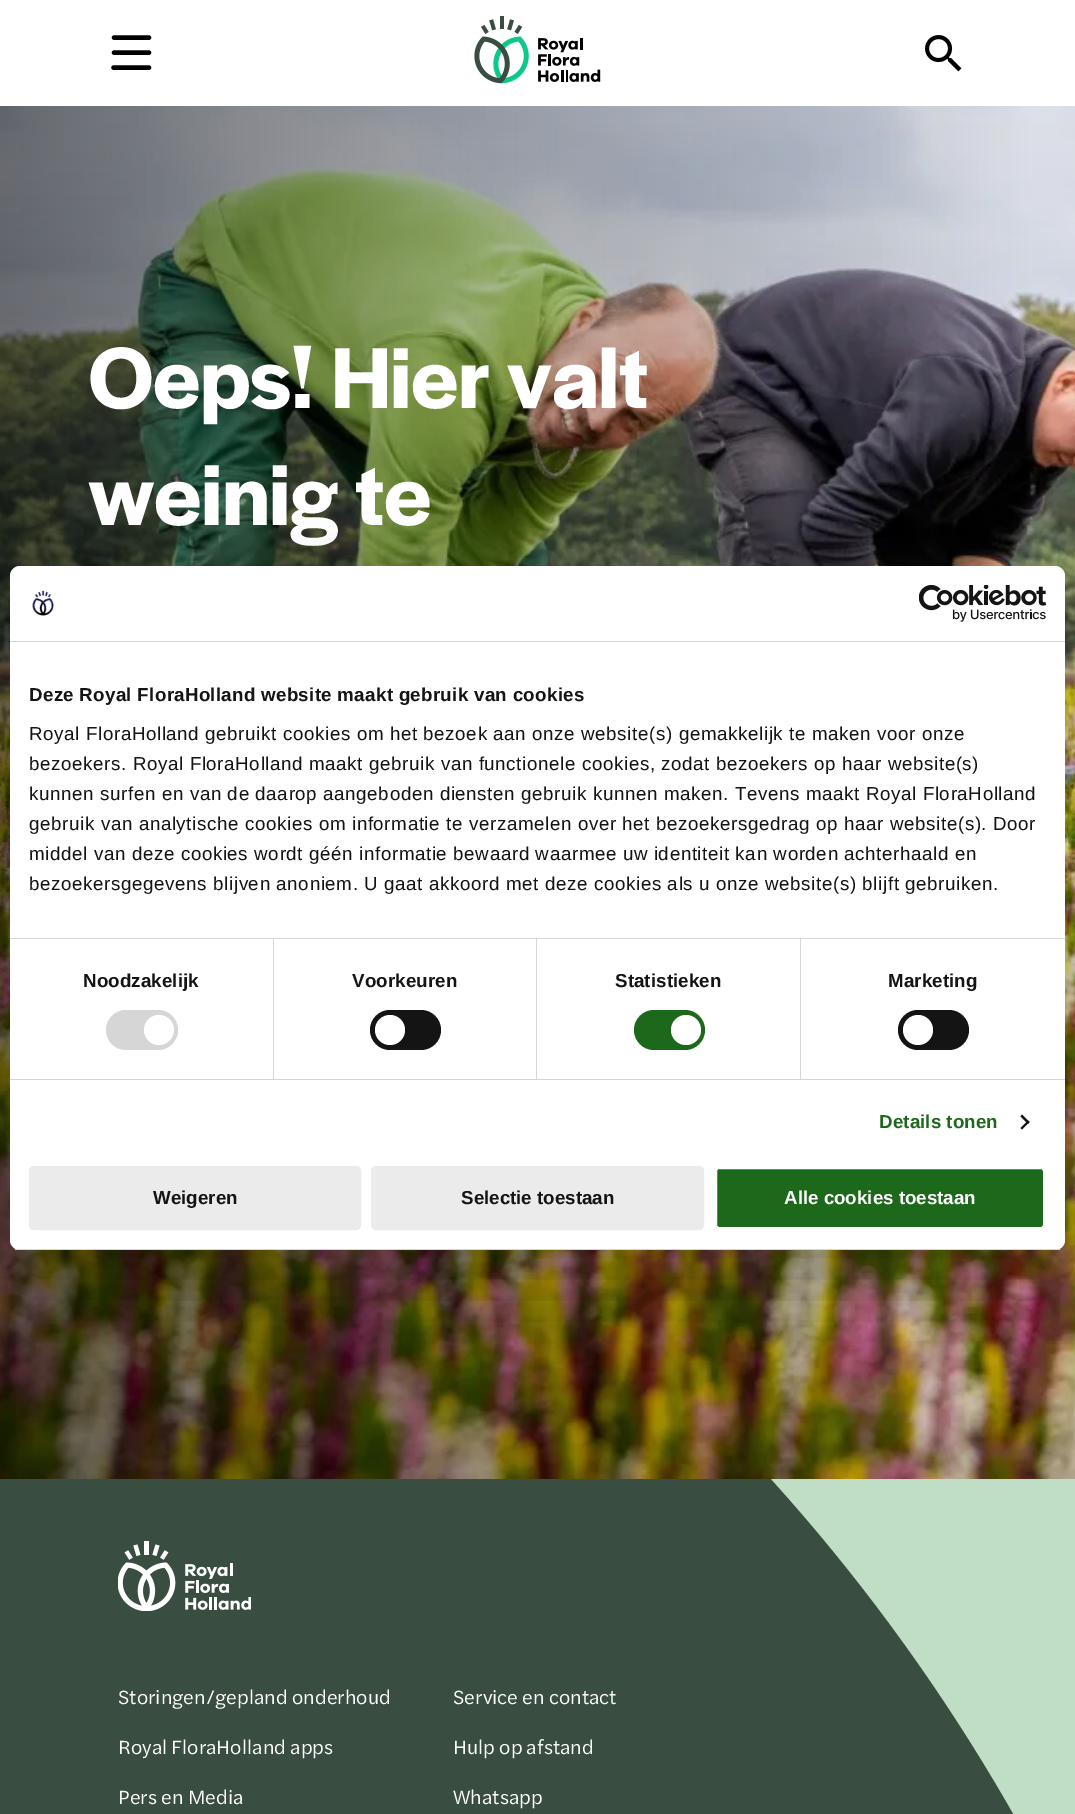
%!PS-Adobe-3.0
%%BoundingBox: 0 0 1075 1814
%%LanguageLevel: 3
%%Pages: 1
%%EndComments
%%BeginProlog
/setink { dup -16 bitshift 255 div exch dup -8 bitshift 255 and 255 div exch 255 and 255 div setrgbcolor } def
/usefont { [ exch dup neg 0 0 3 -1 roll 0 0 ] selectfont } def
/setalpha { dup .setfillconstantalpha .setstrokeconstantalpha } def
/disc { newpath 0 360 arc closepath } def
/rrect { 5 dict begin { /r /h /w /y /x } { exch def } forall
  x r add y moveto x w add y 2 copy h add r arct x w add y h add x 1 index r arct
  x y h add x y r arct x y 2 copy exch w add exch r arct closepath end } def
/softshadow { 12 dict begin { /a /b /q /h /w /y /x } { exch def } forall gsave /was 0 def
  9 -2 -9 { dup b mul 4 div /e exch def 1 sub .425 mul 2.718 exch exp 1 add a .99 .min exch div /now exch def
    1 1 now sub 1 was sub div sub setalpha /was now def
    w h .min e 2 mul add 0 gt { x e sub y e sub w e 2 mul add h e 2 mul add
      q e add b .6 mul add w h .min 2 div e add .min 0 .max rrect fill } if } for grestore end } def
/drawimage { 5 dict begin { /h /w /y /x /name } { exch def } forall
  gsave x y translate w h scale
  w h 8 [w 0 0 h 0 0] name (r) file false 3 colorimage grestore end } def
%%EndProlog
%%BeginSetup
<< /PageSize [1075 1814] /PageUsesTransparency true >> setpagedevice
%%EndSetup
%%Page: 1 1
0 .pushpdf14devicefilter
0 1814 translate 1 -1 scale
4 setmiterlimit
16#C0DDC5 setink
0 0 1075 1814 rectfill
16#FFFFFF setink
0 0 1075 106 rectfill
16#000000 setink
4.4 setlinewidth
1 setlinecap
114 37.5 moveto 149 37.5 lineto 114 52.5 moveto 149 52.5 lineto 149 67.5 moveto 113.5 67.5 lineto stroke
(img1.raw) 474 16 127 68 drawimage
(img2.raw) 925 35 37 37 drawimage
(img3.raw) 0 106 1075 1373 drawimage
/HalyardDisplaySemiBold-SemiBold 90 usefont
16#FFFFFF setink
88 408 moveto -0.5 0 (Oeps! Hier valt) ashow
88 525 moveto -0.5 0 (weinig te) ashow
gsave
0 1479 1075 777 rectclip
16#3A4D41 setink
-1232 983 moveto -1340 1215 -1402 1466 -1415 1723 curveto -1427 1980 -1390 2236 -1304 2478 curveto -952 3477 119 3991 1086 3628 curveto 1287 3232 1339 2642 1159 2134 curveto 807 1135 -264 620 -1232 983 curveto closepath fill
grestore
(img4.raw) 118 1541 133 70 drawimage
/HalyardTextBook-Regular 20 usefont
[
    [(Storingen/gepland onderhoud) 118 1704]
    [(Royal FloraHolland apps) 118 1754]
    [(Pers en Media) 118 1804]
    [(Service en contact) 453 1704]
    [(Hulp op afstand) 453 1754]
    [(Whatsapp) 453 1804]
] { aload pop moveto show } forall
16#000000 setink
10 606 1055 684 10 42.5 0.3 softshadow
16#FFFFFF setink
10 566 1055 684 10 rrect fill
16#D6D6D6 setink
10 641 1055 1 rectfill
(img5.raw) 32 590 22 26 drawimage
(img6.raw) 919 585 127 37 drawimage
10 938 1055 1 rectfill
/LiberationSans-Bold 18.75 usefont
16#141414 setink
29 701 moveto 0.3 0 (Deze Royal FloraHolland website maakt gebruik van cookies) ashow
/LiberationSans-Regular 18.75 usefont
29 740 moveto 0.62 0 (Royal FloraHolland gebruikt cookies om het bezoek aan onze website\(s\) gemakkelijk te maken voor onze) ashow
29 770 moveto 0.62 0 (bezoekers. Royal FloraHolland maakt gebruik van functionele cookies, zodat bezoekers op haar website\(s\)) ashow
29 800 moveto 0.62 0 (kunnen surfen en van de daarop aangeboden diensten gebruik kunnen maken. Tevens maakt Royal FloraHolland) ashow
29 830 moveto 0.62 0 (gebruik van analytische cookies om informatie te verzamelen over het bezoekersgedrag op haar website\(s\). Door) ashow
29 860 moveto 0.62 0 (middel van deze cookies wordt géén informatie bewaard waarmee uw identiteit kan worden achterhaald en) ashow
29 890 moveto 0.62 0 (bezoekersgegevens blijven anoniem. U gaat akkoord met deze cookies als u onze website\(s\) blijft gebruiken.) ashow
16#D6D6D6 setink
10 1079 1055 1 rectfill
273 939 1 140 rectfill
/LiberationSans-Bold 18.75 usefont
16#141414 setink
83 987 moveto 0.1 0 (Noodzakelijk) ashow
16#D6D6D6 setink
106 1010 72 40 20 rrect fill
16#FFFFFF setink
159 1030 15 disc fill
16#D6D6D6 setink
536 939 1 140 rectfill
16#141414 setink
352 987 moveto 0.1 0 (Voorkeuren) ashow
370 1010 71 40 20 rrect fill
16#FFFFFF setink
390 1030 15 disc fill
16#D6D6D6 setink
800 939 1 140 rectfill
16#141414 setink
615 987 moveto 0.1 0 (Statistieken) ashow
16#1D691B setink
634 1010 71 40 20 rrect fill
16#FFFFFF setink
686 1030 15 disc fill
16#141414 setink
888 987 moveto 0.1 0 (Marketing) ashow
898 1010 71 40 20 rrect fill
16#FFFFFF setink
918 1030 15 disc fill
16#1D691B setink
879 1128 moveto 0.1 0 (Details tonen) ashow
16#141414 setink
1022 1114.5 moveto 1029.5 1122 lineto 1028 1124 lineto 1020.5 1116.5 lineto closepath fill
1028 1120.5 moveto 1029.5 1122 lineto 1022 1129.5 lineto 1020.5 1128 lineto closepath fill
gsave
10 566 1055 684 10 rrect clip newpath
16#D6D6D6 setink
10 1249 1055 1 rectfill
grestore
16#ECEBEB setink
30.5 1167.5 329 61 3.5 rrect gsave fill grestore
3 setlinewidth
0 setlinecap
stroke
16#141414 setink
153 1204 moveto (Weigeren) show
16#ECEBEB setink
372.5 1167.5 330 61 3.5 rrect gsave fill grestore
stroke
16#141414 setink
461 1204 moveto (Selectie toestaan) show
16#1D691B setink
715.5 1167.5 329 61 3.5 rrect gsave fill grestore
16#FFFFFF setink
stroke
784 1204 moveto (Alle cookies toestaan) show
.poppdf14devicefilter showpage
%%EOF
